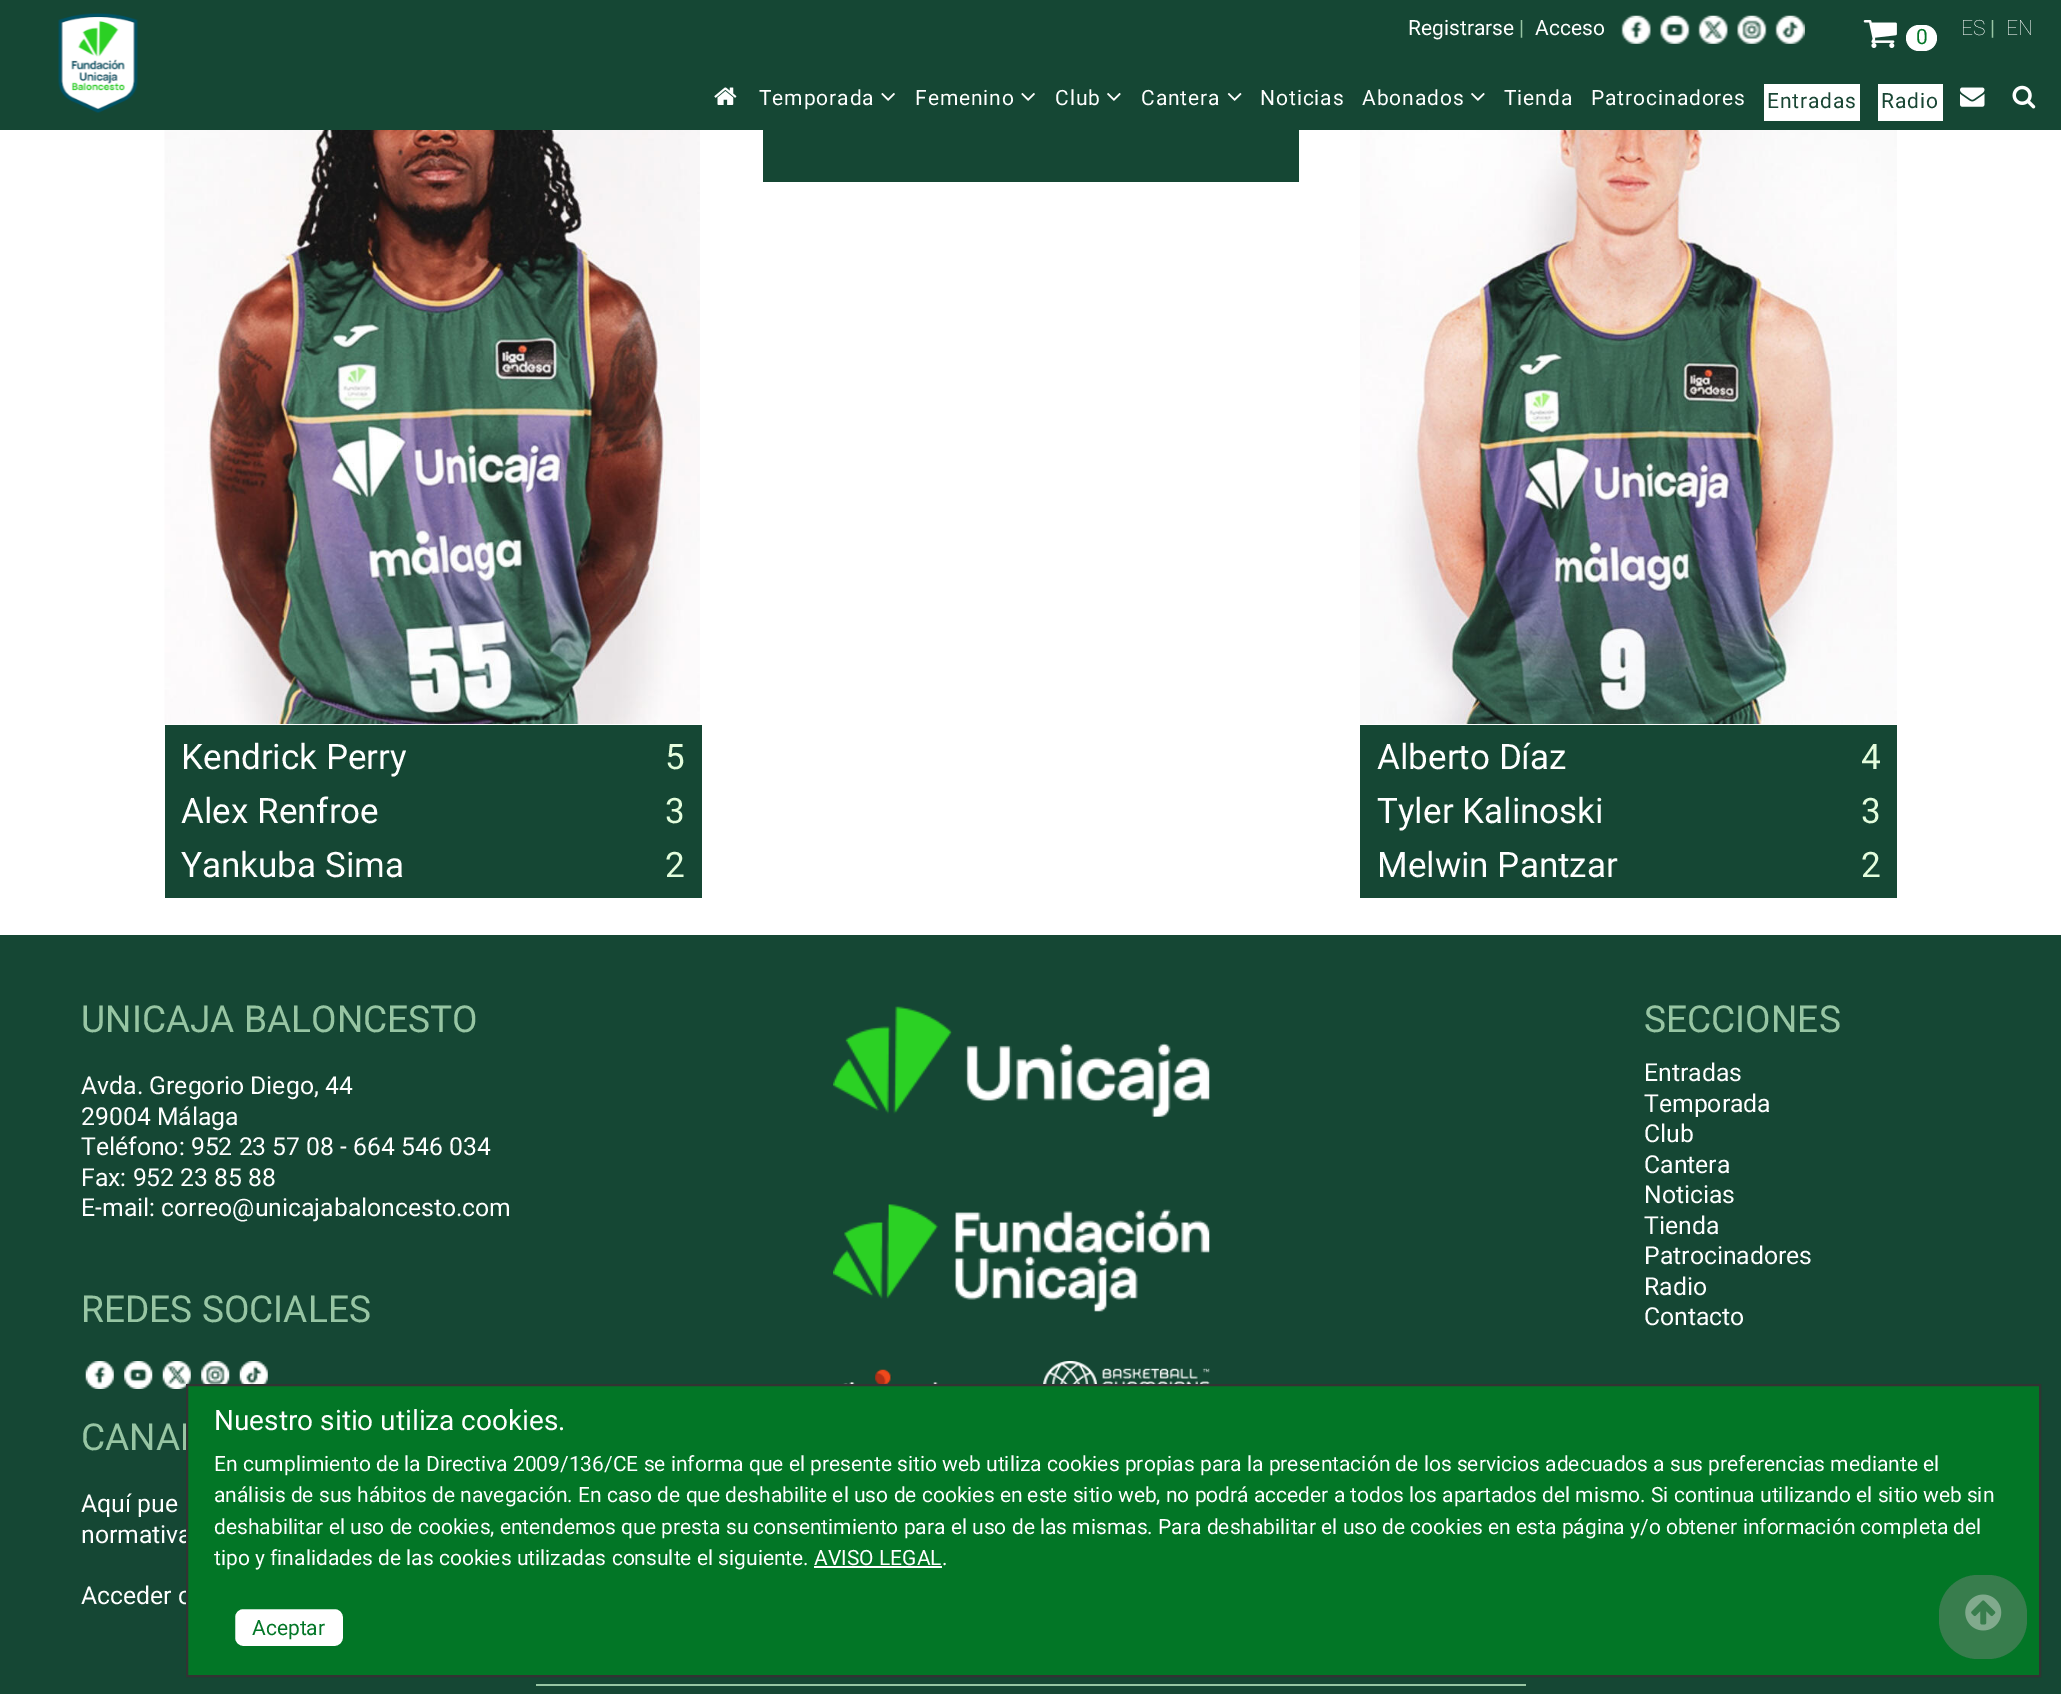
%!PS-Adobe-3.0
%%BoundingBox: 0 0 2061 1694
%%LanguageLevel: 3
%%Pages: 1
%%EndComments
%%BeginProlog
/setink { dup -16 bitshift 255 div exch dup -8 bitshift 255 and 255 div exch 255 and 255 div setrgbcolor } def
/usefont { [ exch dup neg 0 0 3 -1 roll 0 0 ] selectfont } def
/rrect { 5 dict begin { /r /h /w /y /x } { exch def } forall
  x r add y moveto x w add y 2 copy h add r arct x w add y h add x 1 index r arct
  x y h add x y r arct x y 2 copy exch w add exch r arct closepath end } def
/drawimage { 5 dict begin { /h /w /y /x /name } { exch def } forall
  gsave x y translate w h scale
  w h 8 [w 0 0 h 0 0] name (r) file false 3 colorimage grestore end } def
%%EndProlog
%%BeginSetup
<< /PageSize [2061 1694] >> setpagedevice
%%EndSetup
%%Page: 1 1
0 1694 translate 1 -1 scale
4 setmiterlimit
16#FFFFFF setink
0 0 2061 1694 rectfill
16#154734 setink
0 0 2061 130 rectfill
(img1.raw) 58 13 80 100 drawimage
/Roboto-Regular 21 usefont
16#FFFFFF setink
1408 35 moveto (Registrarse) show
16#97C5A3 setink
1519 35 moveto (|) show
16#FFFFFF setink
1535 35 moveto (Acceso) show
(img2.raw) 1621 15 30 29 drawimage
(img3.raw) 1660 15 30 29 drawimage
(img4.raw) 1698 15 30 29 drawimage
(img5.raw) 1737 15 30 29 drawimage
(img6.raw) 1775 15 30 29 drawimage
(img7.raw) 1863 20 34 28 drawimage
1906 25 31 26 13 rrect fill
16#027626 setink
1916 44 moveto (0) show
/Roboto-Thin 21 usefont
16#FFFFFF setink
1961 35 moveto (ES) show
/Roboto-Regular 21 usefont
16#97C5A3 setink
1990 35 moveto (|) show
/Roboto-Thin 21 usefont
16#FFFFFF setink
2006 35 moveto (EN) show
(img8.raw) 714 87 23 18 drawimage
/Roboto-Regular 21 usefont
759 105 moveto 0.9 0 (Temporada) ashow
(img9.raw) 881 93 14 8 drawimage
915 105 moveto 0.9 0 (Femenino) ashow
(img9.raw) 1021 93 14 8 drawimage
1055 105 moveto 0.9 0 (Club) ashow
(img10.raw) 1107 93 14 8 drawimage
1141 105 moveto 0.9 0 (Cantera) ashow
(img11.raw) 1227 93 15 8 drawimage
1260 105 moveto 0.9 0 (Noticias) ashow
1362 105 moveto 0.9 0 (Abonados) ashow
(img10.raw) 1471 93 14 8 drawimage
1504 105 moveto 0.9 0 (Tienda) ashow
1591 105 moveto 0.9 0 (Patrocinadores) ashow
1764 84 96 37 rectfill
16#194634 setink
1767 108 moveto 0.9 0 (Entradas) ashow
16#FFFFFF setink
1878 84 65 37 rectfill
16#194634 setink
1881 108 moveto 0.9 0 (Radio) ashow
(img12.raw) 1960 87 25 20 drawimage
(img13.raw) 2012 85 24 24 drawimage
16#154734 setink
763 130 536 52 rectfill
(img14.raw) 164 130 536 594 drawimage
165 725 537 173 rectfill
/Roboto-Regular 35 usefont
16#FFFFFF setink
181 769 moveto (Kendrick Perry) show
16#E4FEDD setink
665 769 moveto (5) show
16#FFFFFF setink
181 823 moveto (Alex Renfroe) show
16#E4FEDD setink
665 823 moveto (3) show
16#FFFFFF setink
181 877 moveto (Yankuba Sima) show
16#E4FEDD setink
665 877 moveto (2) show
(img15.raw) 1360 130 537 594 drawimage
16#154734 setink
1360 725 537 173 rectfill
16#FFFFFF setink
1377 769 moveto (Alberto Díaz) show
16#E4FEDD setink
1861 769 moveto (4) show
16#FFFFFF setink
1377 823 moveto (Tyler Kalinoski) show
16#E4FEDD setink
1861 823 moveto (3) show
16#FFFFFF setink
1377 877 moveto (Melwin Pantzar) show
16#E4FEDD setink
1861 877 moveto (2) show
16#154734 setink
0 935 2061 759 rectfill
/Roboto-Regular 37.1 usefont
16#97C5A3 setink
81 1032 moveto (UNICAJA BALONCESTO) show
/Roboto-Regular 24.75 usefont
16#FFFFFF setink
[
    [(Avda. Gregorio Diego, 44) 81 1094]
    [(29004 Málaga) 81 1125]
    [(Teléfono: 952 23 57 08 - 664 546 034) 81 1155]
    [(Fax: 952 23 85 88) 81 1186]
    [(E-mail: correo@unicajabaloncesto.com) 81 1216]
] { aload pop moveto show } forall
/Roboto-Regular 37.1 usefont
16#97C5A3 setink
81 1322 moveto (REDES SOCIALES) show
(img16.raw) 85 1361 29 28 drawimage
(img17.raw) 124 1361 29 28 drawimage
(img18.raw) 162 1361 29 28 drawimage
(img19.raw) 201 1361 29 23 drawimage
(img20.raw) 239 1361 29 23 drawimage
81 1450 moveto (CANAL) show
/Roboto-Regular 24.75 usefont
16#FFFFFF setink
[
    [(Aquí pue) 81 1512]
    [(normativa) 81 1543]
    [(Acceder c) 81 1604]
] { aload pop moveto show } forall
(img21.raw) 833 1006 377 111 drawimage
(img22.raw) 833 1204 377 108 drawimage
(img23.raw) 843 1369 95 15 drawimage
(img24.raw) 1043 1361 167 23 drawimage
/Roboto-Regular 37.1 usefont
16#97C5A3 setink
1644 1032 moveto (SECCIONES) show
/Roboto-Regular 24.75 usefont
16#FFFFFF setink
[
    [(Entradas) 1644 1081]
    [(Temporada) 1644 1112]
    [(Club) 1644 1142]
    [(Cantera) 1644 1173]
    [(Noticias) 1644 1203]
    [(Tienda) 1644 1234]
    [(Patrocinadores) 1644 1264]
    [(Radio) 1644 1295]
    [(Contacto) 1644 1325]
] { aload pop moveto show } forall
16#97C5A3 setink
536 1684 990 2 rectfill
16#027626 setink
187 1385 moveto 2040 1385 lineto 2040 1676 lineto 187 1676 lineto closepath gsave fill grestore
16#333333 setink
2 setlinewidth
stroke
/Roboto-Regular 28 usefont
16#FFFFFF setink
214 1430 moveto (Nuestro sitio utiliza cookies.) show
/Roboto-Regular 21 usefont
[
    [(En cumplimiento de la Directiva 2009/136/CE se informa que el presente sitio web utiliza cookies propias para la presentación de los servicios adecuados a sus preferencias mediante el) 214 1471]
    [(análisis de sus hábitos de navegación. En caso de que deshabilite el uso de cookies en este sitio web, no podrá acceder a todos los apartados del mismo. Si continua utilizando el sitio web sin) 214 1502]
    [(deshabilitar el uso de cookies, entendemos que presta su consentimiento para el uso de las mismas. Para deshabilitar el uso de cookies en esta página y/o obtener información completa del) 214 1534]
    [(tipo y finalidades de las cookies utilizadas consulte el siguiente. AVISO LEGAL.) 214 1565]
] { aload pop moveto show } forall
814 1566 128 2 rectfill
233 1607 112 41 10 rrect gsave fill grestore
16#027626 setink
4 setlinewidth
stroke
252 1635 moveto (Aceptar) show
16#387D4D setink
1939 1575 88 84 39 rrect fill
(img25.raw) 1965 1594 37 37 drawimage
showpage
%%EOF
